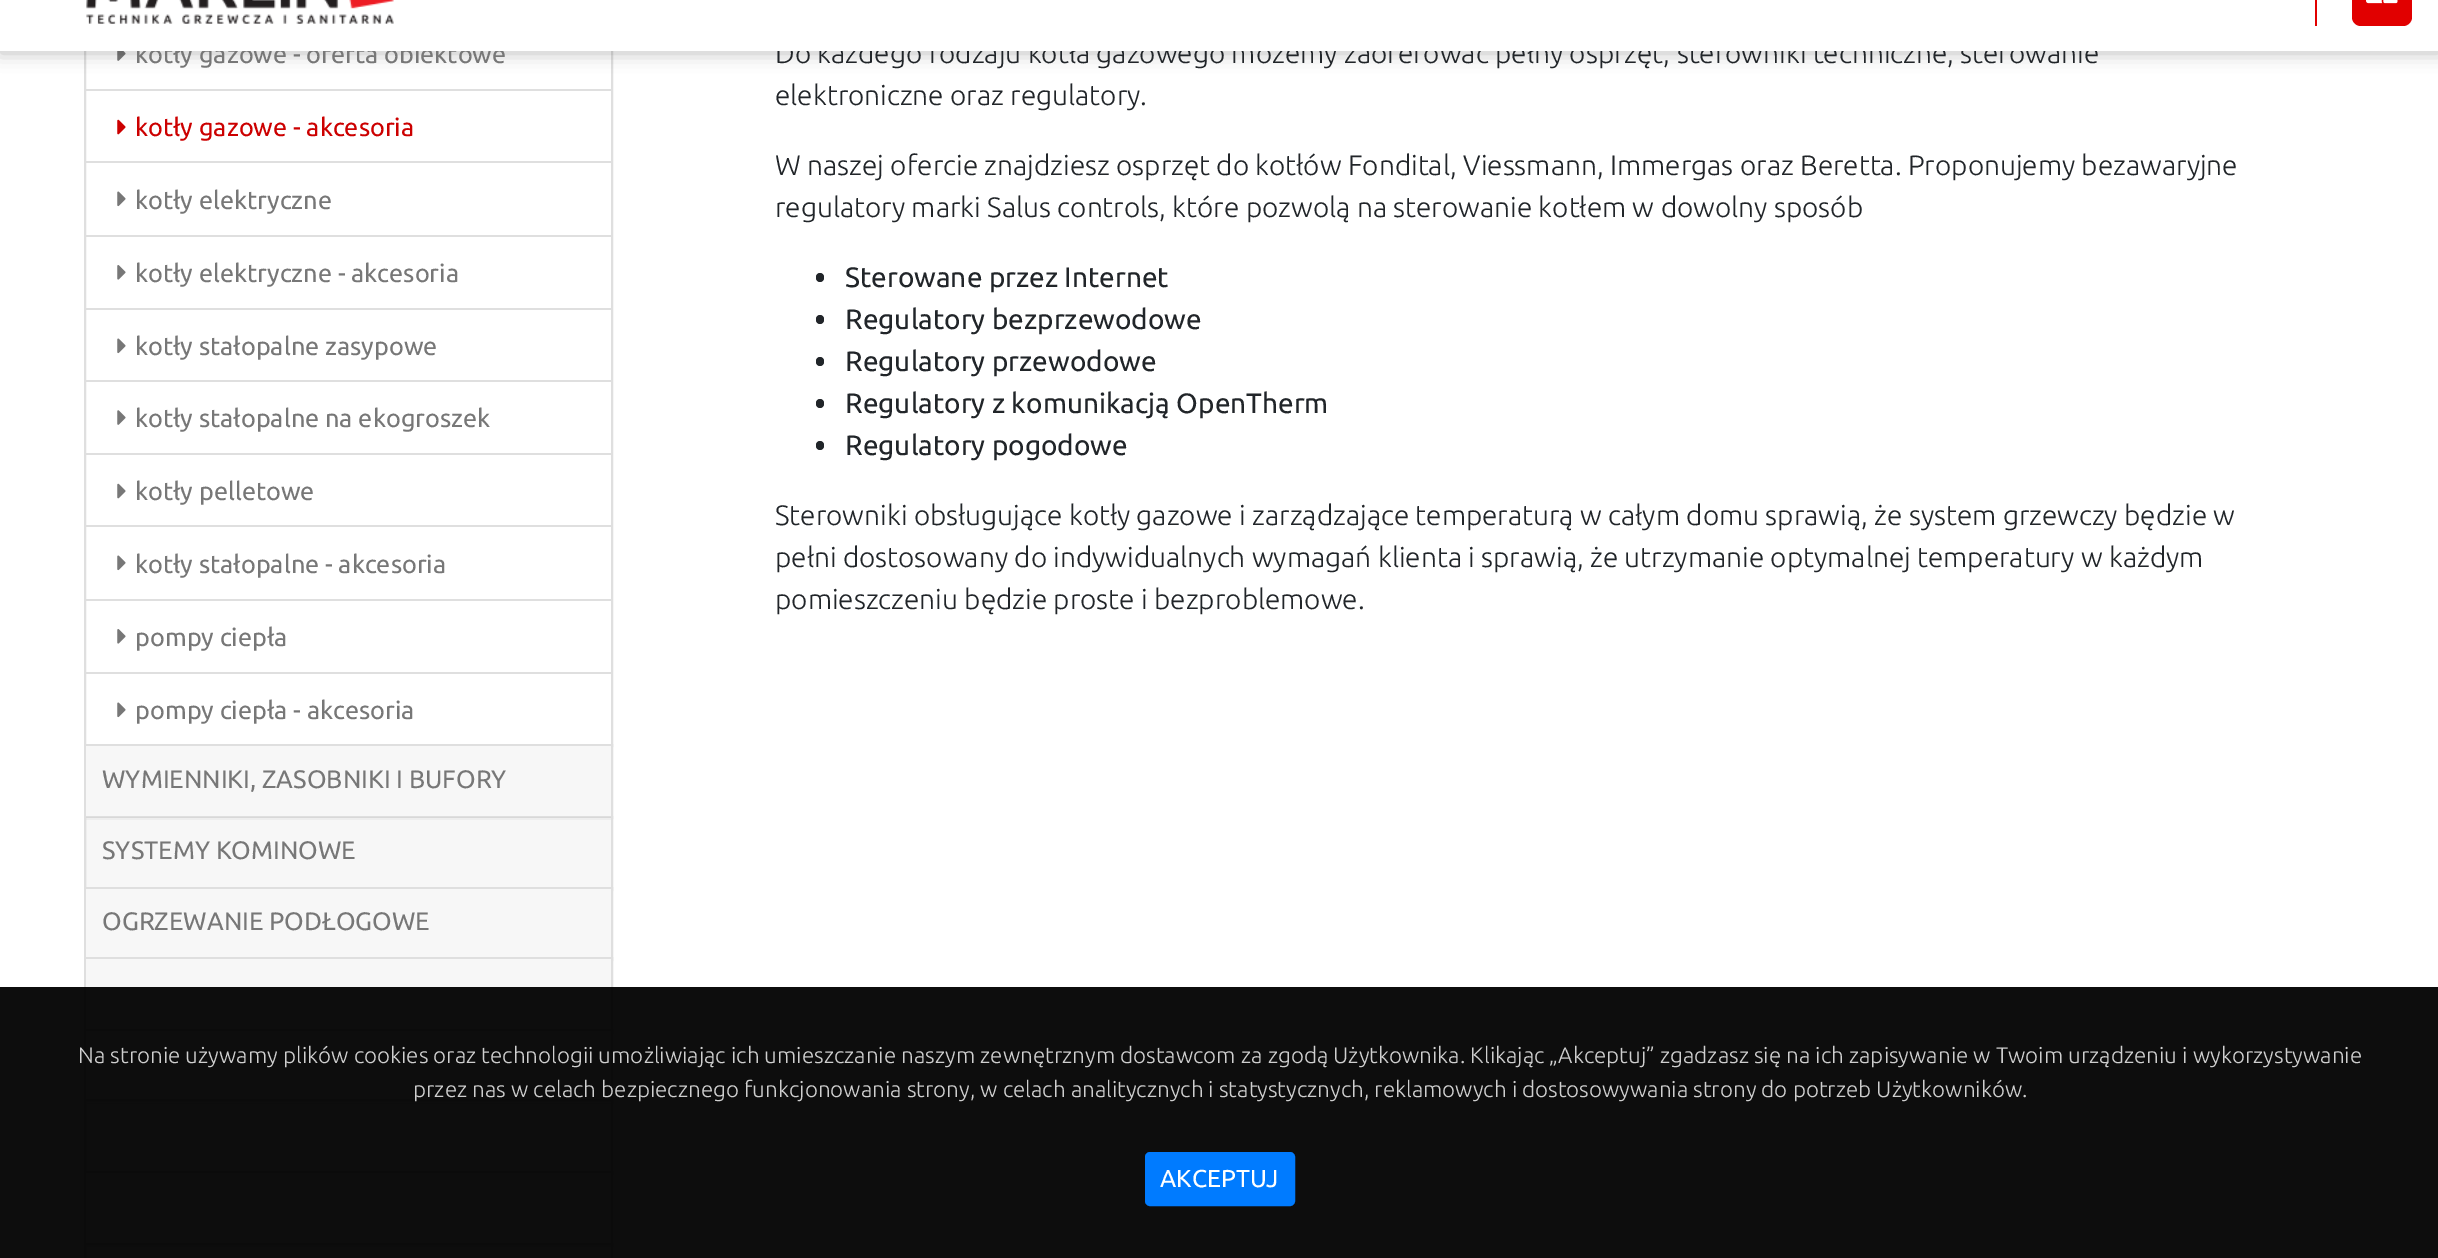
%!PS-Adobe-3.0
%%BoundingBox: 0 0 2438 1258
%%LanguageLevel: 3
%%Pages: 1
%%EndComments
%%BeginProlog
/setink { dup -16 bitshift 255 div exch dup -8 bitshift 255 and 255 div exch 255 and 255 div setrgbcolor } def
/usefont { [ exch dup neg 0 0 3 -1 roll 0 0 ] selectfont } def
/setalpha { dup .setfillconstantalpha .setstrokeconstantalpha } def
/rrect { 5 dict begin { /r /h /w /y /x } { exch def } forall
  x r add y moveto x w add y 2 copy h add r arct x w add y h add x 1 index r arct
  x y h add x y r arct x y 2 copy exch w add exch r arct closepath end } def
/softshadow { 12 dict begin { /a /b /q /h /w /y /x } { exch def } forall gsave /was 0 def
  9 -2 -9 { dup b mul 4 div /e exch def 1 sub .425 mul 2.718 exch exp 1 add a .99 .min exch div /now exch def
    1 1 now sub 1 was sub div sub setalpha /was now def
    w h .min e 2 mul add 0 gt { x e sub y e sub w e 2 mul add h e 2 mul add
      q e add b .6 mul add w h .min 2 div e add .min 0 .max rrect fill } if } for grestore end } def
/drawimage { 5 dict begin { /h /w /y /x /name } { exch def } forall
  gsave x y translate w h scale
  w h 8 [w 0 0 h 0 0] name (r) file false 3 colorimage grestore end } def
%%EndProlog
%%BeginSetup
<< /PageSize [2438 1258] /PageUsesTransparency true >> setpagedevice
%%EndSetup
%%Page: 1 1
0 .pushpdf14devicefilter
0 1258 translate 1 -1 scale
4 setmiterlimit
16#FFFFFF setink
0 0 2438 1258 rectfill
16#DFDFDF setink
2 setlinewidth
85 -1 527 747 rectstroke
(img3.raw) 117 51 9 10 drawimage
16#000000 setink
0 -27 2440 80 0 9 0.25 softshadow
/Ubuntu-Regular 25.25 usefont
16#777777 setink
135 63 moveto (kotły gazowe - oferta obiektowe) show
/Ubuntu-Light 28 usefont
16#212529 setink
775 63 moveto (Do każdego rodzaju kotła gazowego możemy zaoferować pełny osprzęt, sterowniki techniczne, sterowanie) show
16#FFFFFF setink
0 0 2438 51 rectfill
(img1.raw) 86 0 308 24 drawimage
16#E10000 setink
2315 0 2 26 rectfill
2352 -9 60 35 9 rrect fill
(img2.raw) 2366 0 32 4 drawimage
16#DFDFDF setink
86 89 525 2 rectfill
86 161 525 2 rectfill
(img4.raw) 117 119 9 16 drawimage
/Ubuntu-Regular 25.25 usefont
16#CC0000 setink
135 136 moveto (kotły gazowe - akcesoria) show
16#DFDFDF setink
86 235 525 2 rectfill
(img5.raw) 117 191 9 16 drawimage
16#777777 setink
135 209 moveto (kotły elektryczne) show
16#DFDFDF setink
86 308 525 2 rectfill
(img6.raw) 117 265 9 15 drawimage
16#777777 setink
135 282 moveto (kotły elektryczne - akcesoria) show
16#DFDFDF setink
86 380 525 2 rectfill
(img5.raw) 117 338 9 16 drawimage
16#777777 setink
135 355 moveto (kotły stałopalne zasypowe) show
16#DFDFDF setink
86 453 525 2 rectfill
(img7.raw) 117 410 9 15 drawimage
16#777777 setink
135 427 moveto (kotły stałopalne na ekogroszek) show
16#DFDFDF setink
86 525 525 2 rectfill
(img8.raw) 117 483 9 16 drawimage
16#777777 setink
135 500 moveto (kotły pelletowe) show
16#DFDFDF setink
86 599 525 2 rectfill
(img5.raw) 117 555 9 16 drawimage
16#777777 setink
135 573 moveto (kotły stałopalne - akcesoria) show
16#DFDFDF setink
86 672 525 2 rectfill
(img6.raw) 117 629 9 15 drawimage
16#777777 setink
135 646 moveto (pompy ciepła) show
(img5.raw) 117 702 9 16 drawimage
135 719 moveto (pompy ciepła - akcesoria) show
16#DFDFDF setink
85 745 527 73 rectstroke
16#F7F7F7 setink
86 746 525 70 rectfill
16#777777 setink
102 788 moveto (WYMIENNIKI, ZASOBNIKI I BUFORY) show
16#FFFFFF setink
86 818 525 1 rectfill
16#DFDFDF setink
85 817 527 73 rectstroke
0.03 setalpha
16#000000 setink
86 817 525 70 rectfill
1 setalpha
16#777777 setink
102 859 moveto (SYSTEMY KOMINOWE) show
16#DFDFDF setink
85 888 527 72 rectstroke
16#F7F7F7 setink
86 889 525 68 rectfill
16#777777 setink
102 930 moveto (OGRZEWANIE PODŁOGOWE) show
16#DFDFDF setink
85 958 527 74 rectstroke
16#F7F7F7 setink
86 959 525 70 rectfill
16#DFDFDF setink
85 1030 527 72 rectstroke
16#F7F7F7 setink
86 1031 525 68 rectfill
16#FFFFFF setink
86 1101 525 2 rectfill
16#DFDFDF setink
85 1100 527 73 rectstroke
0.03 setalpha
16#000000 setink
86 1101 525 70 rectfill
1 setalpha
16#DFDFDF setink
85 1172 527 73 rectstroke
16#F7F7F7 setink
86 1173 525 70 rectfill
16#FFFFFF setink
86 1245 525 1 rectfill
16#DFDFDF setink
85 1244 527 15 rectstroke
0.03 setalpha
16#000000 setink
86 1244 525 14 rectfill
/Ubuntu-Light 28 usefont
1 setalpha
16#212529 setink
[
    [(elektroniczne oraz regulatory.) 775 105]
    [(W naszej ofercie znajdziesz osprzęt do kotłów Fondital, Viessmann, Immergas oraz Beretta. Proponujemy bezawaryjne) 775 175]
    [(regulatory marki Salus controls, które pozwolą na sterowanie kotłem w dowolny sposób) 775 217]
] { aload pop moveto show } forall
816 273 8 9 4 rrect fill
/Ubuntu-Regular 28 usefont
845 287 moveto (Sterowane przez Internet) show
816 315 8 9 4 rrect fill
845 329 moveto (Regulatory bezprzewodowe) show
816 357 8 9 4 rrect fill
845 371 moveto (Regulatory przewodowe) show
816 399 8 9 4 rrect fill
845 413 moveto (Regulatory z komunikacją OpenTherm) show
816 441 8 9 4 rrect fill
845 455 moveto (Regulatory pogodowe) show
/Ubuntu-Light 28 usefont
[
    [(Sterowniki obsługujące kotły gazowe i zarządzające temperaturą w całym domu sprawią, że system grzewczy będzie w) 775 525]
    [(pełni dostosowany do indywidualnych wymagań klienta i sprawią, że utrzymanie optymalnej temperatury w każdym) 775 567]
    [(pomieszczeniu będzie proste i bezproblemowe.) 775 609]
] { aload pop moveto show } forall
0.95 setalpha
16#000000 setink
0 987 2438 271 rectfill
/Ubuntu-Light 22.4 usefont
1 setalpha
16#CFCFCF setink
78 1063 moveto (Na stronie używamy plików cookies oraz technologii umożliwiając ich umieszczanie naszym zewnętrznym dostawcom za zgodą Użytkownika. Klikając „Akceptuj” zgadzasz się na ich zapisywanie w Twoim urządzeniu i wykorzystywanie) show
413 1097 moveto (przez nas w celach bezpiecznego funkcjonowania strony, w celach analitycznych i statystycznych, reklamowych i dostosowywania strony do potrzeb Użytkowników.) show
16#007BFF setink
1146 1153 148 52 4 rrect gsave fill grestore
stroke
/Ubuntu-Regular 24.5 usefont
16#FFFFFF setink
1160 1187 moveto (AKCEPTUJ) show
.poppdf14devicefilter showpage
%%EOF
